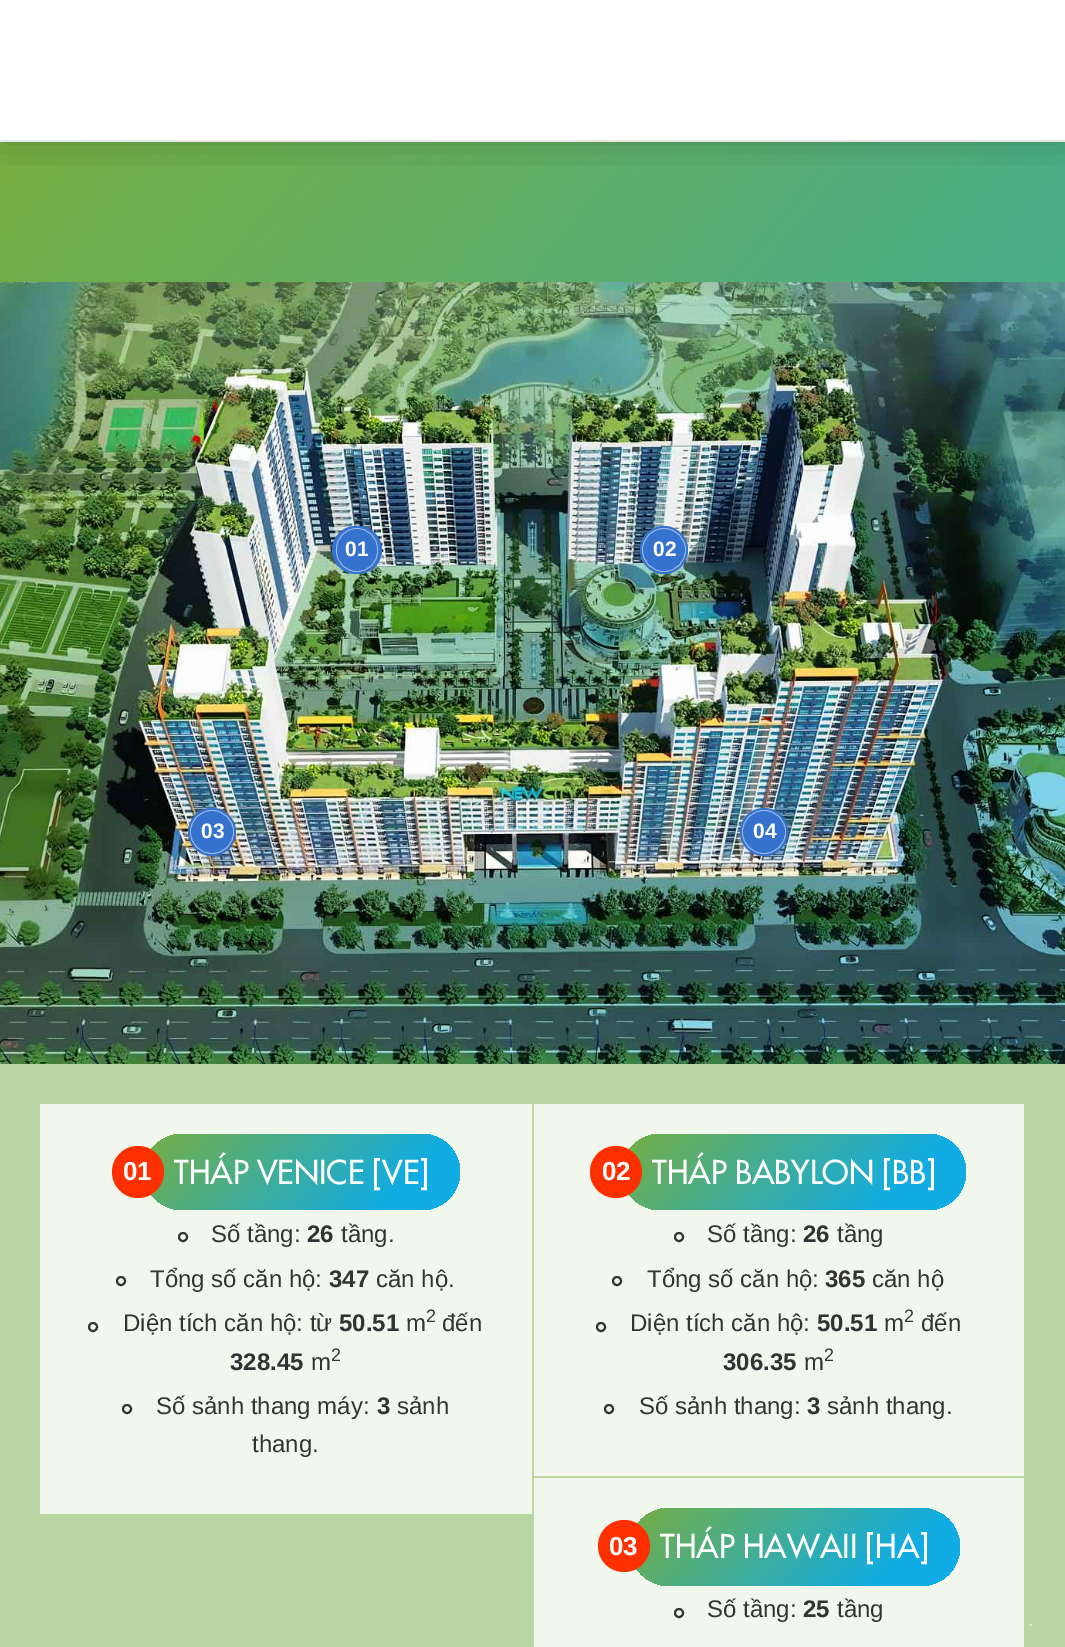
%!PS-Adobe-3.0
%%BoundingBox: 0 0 1065 1647
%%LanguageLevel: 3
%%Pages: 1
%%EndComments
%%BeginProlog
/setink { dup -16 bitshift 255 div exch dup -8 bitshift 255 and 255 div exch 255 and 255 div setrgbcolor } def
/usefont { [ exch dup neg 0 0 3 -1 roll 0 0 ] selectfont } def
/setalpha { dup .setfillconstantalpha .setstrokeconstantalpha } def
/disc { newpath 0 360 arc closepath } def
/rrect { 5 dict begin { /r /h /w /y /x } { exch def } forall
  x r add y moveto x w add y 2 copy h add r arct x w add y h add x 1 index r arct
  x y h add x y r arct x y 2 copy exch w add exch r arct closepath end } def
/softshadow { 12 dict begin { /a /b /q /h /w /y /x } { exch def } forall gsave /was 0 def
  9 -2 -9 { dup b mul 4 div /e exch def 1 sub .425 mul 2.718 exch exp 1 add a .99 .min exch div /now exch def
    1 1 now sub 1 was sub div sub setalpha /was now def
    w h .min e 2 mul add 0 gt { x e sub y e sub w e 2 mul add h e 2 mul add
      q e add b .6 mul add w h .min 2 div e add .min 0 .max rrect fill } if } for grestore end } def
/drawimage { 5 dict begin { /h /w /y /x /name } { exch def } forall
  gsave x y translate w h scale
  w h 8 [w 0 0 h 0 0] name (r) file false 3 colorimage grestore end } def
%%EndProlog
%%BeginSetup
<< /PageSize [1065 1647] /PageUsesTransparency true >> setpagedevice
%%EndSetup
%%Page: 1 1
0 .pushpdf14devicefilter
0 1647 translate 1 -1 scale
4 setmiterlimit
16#FFFFFF setink
0 0 1065 1647 rectfill
gsave 0 142 moveto 1065 142 lineto 1065 282 lineto 0 282 lineto closepath clip newpath
<< /ShadingType 2 /ColorSpace /DeviceRGB /Coords [-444 671 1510 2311] /Extend [true true] /Function << /FunctionType 3 /Domain [0 1] /Functions [<< /FunctionType 2 /Domain [0 1] /C0 [0.463 0.682 0.263] /C1 [0.067 0.675 0.894] /N 1 >> << /FunctionType 2 /Domain [0 1] /C0 [0.067 0.675 0.894] /C1 [0.067 0.675 0.894] /N 1 >>] /Bounds [0.8] /Encode [0 1 0 1] >> >> shfill grestore
gsave
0 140 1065 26 rectclip
16#000000 setink
0 0 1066 140 0 20 0.2 softshadow
grestore
(img1.raw) 0 282 1065 782 drawimage
16#3572CD setink
332 526 50 48 24 rrect fill
16#9AB9E6 setink
0.8 setlinewidth
336.4 528.4 41.2 43.2 20.6 rrect stroke
/LiberationSans-Bold 21 usefont
16#FFFFFF setink
345 556 moveto (01) show
16#3572CD setink
664 550 24 disc fill
16#9AB9E6 setink
664 550 21.6 disc stroke
16#FFFFFF setink
653 556 moveto (02) show
16#3572CD setink
212 832 24 disc fill
16#9AB9E6 setink
212 832 21.6 disc stroke
16#FFFFFF setink
201 838 moveto (03) show
16#3572CD setink
764 832 24 disc fill
16#9AB9E6 setink
764 832 21.6 disc stroke
16#FFFFFF setink
753 838 moveto (04) show
16#BAD6A3 setink
0 1064 1065 583 rectfill
16#F1F7ED setink
40 1104 492 410 rectfill
gsave 144 1134 316 76 38 rrect clip newpath
<< /ShadingType 2 /ColorSpace /DeviceRGB /Coords [204 1074 400 1270] /Extend [true true] /Function << /FunctionType 3 /Domain [0 1] /Functions [<< /FunctionType 2 /Domain [0 1] /C0 [0.463 0.682 0.263] /C1 [0.067 0.675 0.894] /N 1 >> << /FunctionType 2 /Domain [0 1] /C0 [0.067 0.675 0.894] /C1 [0.067 0.675 0.894] /N 1 >>] /Bounds [0.8] /Encode [0 1 0 1] >> >> shfill grestore
16#FF3000 setink
138 1172 26 disc fill
/LiberationSans-Bold 26 usefont
16#FFFFFF setink
123 1180 moveto (01) show
/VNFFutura-Regular 32 usefont
174 1184 moveto (THÁP VENICE [VE]) show
16#333333 setink
2 setlinewidth
183 1237 4 disc stroke
/LiberationSans-Regular 24 usefont
211 1242 moveto (Số tầng:) show
/LiberationSans-Bold 24 usefont
307 1242 moveto (26) show
/LiberationSans-Regular 24 usefont
341 1242 moveto (tầng.) show
121 1281 4 disc stroke
150 1287 moveto (Tổng số căn hộ:) show
/LiberationSans-Bold 24 usefont
329 1287 moveto (347) show
/LiberationSans-Regular 24 usefont
376 1287 moveto (căn hộ.) show
93 1327 4 disc stroke
123 1331 moveto (Diện tích căn hộ: từ) show
/LiberationSans-Bold 24 usefont
339 1331 moveto (50.51) show
/LiberationSans-Regular 24 usefont
406 1331 moveto (m) show
/LiberationSans-Regular 18 usefont
426 1322 moveto (2) show
/LiberationSans-Regular 24 usefont
442 1331 moveto (đến) show
/LiberationSans-Bold 24 usefont
230 1370 moveto (328.45) show
/LiberationSans-Regular 24 usefont
311 1370 moveto (m) show
/LiberationSans-Regular 18 usefont
331 1361 moveto (2) show
127 1409 4 disc stroke
/LiberationSans-Regular 24 usefont
156 1414 moveto (Số sảnh thang máy:) show
/LiberationSans-Bold 24 usefont
377 1414 moveto (3) show
/LiberationSans-Regular 24 usefont
397 1414 moveto (sảnh) show
252 1452 moveto (thang.) show
16#F1F7ED setink
534 1104 490 372 rectfill
gsave 622 1134 344 76 38 rrect clip newpath
<< /ShadingType 2 /ColorSpace /DeviceRGB /Coords [689 1067 899 1277] /Extend [true true] /Function << /FunctionType 3 /Domain [0 1] /Functions [<< /FunctionType 2 /Domain [0 1] /C0 [0.463 0.682 0.263] /C1 [0.067 0.675 0.894] /N 1 >> << /FunctionType 2 /Domain [0 1] /C0 [0.067 0.675 0.894] /C1 [0.067 0.675 0.894] /N 1 >>] /Bounds [0.8] /Encode [0 1 0 1] >> >> shfill grestore
16#FF3000 setink
616 1172 26 disc fill
/LiberationSans-Bold 26 usefont
16#FFFFFF setink
602 1180 moveto (02) show
/VNFFutura-Regular 32 usefont
652 1184 moveto (THÁP BABYLON [BB]) show
16#333333 setink
679 1237 4 disc stroke
/LiberationSans-Regular 24 usefont
707 1242 moveto (Số tầng:) show
/LiberationSans-Bold 24 usefont
803 1242 moveto (26) show
/LiberationSans-Regular 24 usefont
837 1242 moveto (tầng) show
617 1281 4 disc stroke
647 1287 moveto (Tổng số căn hộ:) show
/LiberationSans-Bold 24 usefont
825 1287 moveto (365) show
/LiberationSans-Regular 24 usefont
872 1287 moveto (căn hộ) show
601 1327 4 disc stroke
630 1331 moveto (Diện tích căn hộ:) show
/LiberationSans-Bold 24 usefont
817 1331 moveto (50.51) show
/LiberationSans-Regular 24 usefont
884 1331 moveto (m) show
/LiberationSans-Regular 18 usefont
904 1322 moveto (2) show
/LiberationSans-Regular 24 usefont
921 1331 moveto (đến) show
/LiberationSans-Bold 24 usefont
723 1370 moveto (306.35) show
/LiberationSans-Regular 24 usefont
804 1370 moveto (m) show
/LiberationSans-Regular 18 usefont
824 1361 moveto (2) show
609 1409 4 disc stroke
/LiberationSans-Regular 24 usefont
639 1414 moveto (Số sảnh thang:) show
/LiberationSans-Bold 24 usefont
807 1414 moveto (3) show
/LiberationSans-Regular 24 usefont
827 1414 moveto (sảnh thang.) show
16#F1F7ED setink
534 1478 490 169 rectfill
gsave 630 1508 330 78 39 rrect clip newpath
<< /ShadingType 2 /ColorSpace /DeviceRGB /Coords [693 1445 897 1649] /Extend [true true] /Function << /FunctionType 3 /Domain [0 1] /Functions [<< /FunctionType 2 /Domain [0 1] /C0 [0.463 0.682 0.263] /C1 [0.067 0.675 0.894] /N 1 >> << /FunctionType 2 /Domain [0 1] /C0 [0.067 0.675 0.894] /C1 [0.067 0.675 0.894] /N 1 >>] /Bounds [0.8] /Encode [0 1 0 1] >> >> shfill grestore
16#FF3000 setink
624 1546 26 disc fill
/LiberationSans-Bold 26 usefont
16#FFFFFF setink
609 1555 moveto (03) show
/VNFFutura-Regular 32 usefont
660 1558 moveto (THÁP HAWAII [HA]) show
16#333333 setink
679 1613 4 disc stroke
/LiberationSans-Regular 24 usefont
707 1617 moveto (Số tầng:) show
/LiberationSans-Bold 24 usefont
803 1617 moveto (25) show
/LiberationSans-Regular 24 usefont
837 1617 moveto (tầng) show
/LiberationSans-Regular 20 usefont
16#E6ECE2 setink
1028 1626 moveto (.) show
.poppdf14devicefilter showpage
%%EOF
